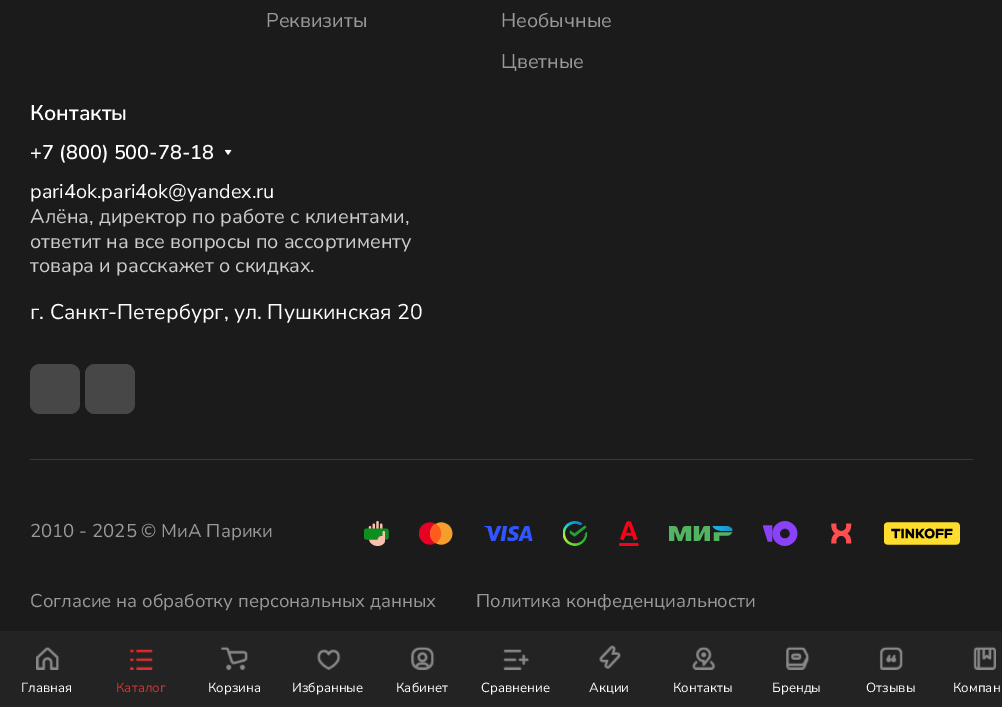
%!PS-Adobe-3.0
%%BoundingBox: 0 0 1002 707
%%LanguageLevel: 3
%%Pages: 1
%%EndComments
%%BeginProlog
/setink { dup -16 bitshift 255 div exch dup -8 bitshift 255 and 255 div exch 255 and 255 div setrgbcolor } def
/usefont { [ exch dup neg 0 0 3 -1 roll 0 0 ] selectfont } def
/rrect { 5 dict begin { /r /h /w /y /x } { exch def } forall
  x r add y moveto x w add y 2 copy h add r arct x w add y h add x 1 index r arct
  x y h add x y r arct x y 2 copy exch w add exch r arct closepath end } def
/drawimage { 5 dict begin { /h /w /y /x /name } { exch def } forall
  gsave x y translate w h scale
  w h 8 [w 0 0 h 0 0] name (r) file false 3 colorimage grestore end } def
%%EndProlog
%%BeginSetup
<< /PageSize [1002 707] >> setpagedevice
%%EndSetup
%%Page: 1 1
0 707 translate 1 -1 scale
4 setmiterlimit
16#1B1B1B setink
0 0 1002 707 rectfill
/NunitoSans-Regular 19.9 usefont
16#999999 setink
[
    [(Реквизиты) 266 27]
    [(Необычные) 501 27]
    [(Цветные) 501 68]
] { aload pop moveto show } forall
/NunitoSans-SemiBold 21.25 usefont
16#FFFFFF setink
30 120 moveto (Контакты) show
/NunitoSans-SemiBold 19.9 usefont
30 159 moveto (+7 \(800\) 500-78-18) show
(img1.raw) 225 149 7 6 drawimage
/NunitoSans-Regular 19.9 usefont
30 198 moveto (pari4ok.pari4ok@yandex.ru) show
16#CCCCCC setink
[
    [(Алёна, директор по работе с клиентами,) 30 223]
    [(ответит на все вопросы по ассортименту) 30 248]
    [(товара и расскажет о скидках.) 30 272]
] { aload pop moveto show } forall
/NunitoSans-Regular 21.25 usefont
16#FFFFFF setink
30 319 moveto (г. Санкт-Петербург, ул. Пушкинская 20) show
16#474747 setink
30 364 50 50 10 rrect fill
85 364 50 50 10 rrect fill
16#3A3A3A setink
30 459 943 1 rectfill
/NunitoSans-Regular 18.6 usefont
16#999999 setink
30 537 moveto (2010 - 2025 © МиА Парики) show
(img2.raw) 364 521 25 25 drawimage
(img3.raw) 419 522 34 23 drawimage
(img4.raw) 484 526 49 15 drawimage
(img5.raw) 563 521 25 25 drawimage
(img6.raw) 619 521 20 25 drawimage
(img7.raw) 669 526 64 15 drawimage
(img8.raw) 763 521 35 25 drawimage
(img9.raw) 831 523 21 21 drawimage
(img10.raw) 884 522 76 23 drawimage
30 607 moveto (Согласие на обработку персональных данных) show
476 607 moveto (Политика конфеденциальности) show
16#232323 setink
0 631 1002 76 rectfill
(img11.raw) 36 646 24 24 drawimage
/NunitoSans-Regular 13.25 usefont
16#FFFFFF setink
21 692 moveto (Главная) show
(img12.raw) 129 649 24 21 drawimage
16#DC2F2F setink
116 692 moveto (Каталог) show
(img13.raw) 221 646 27 24 drawimage
16#FFFFFF setink
208 692 moveto (Корзина) show
(img14.raw) 317 649 24 21 drawimage
292 692 moveto (Избранные) show
(img15.raw) 411 646 24 24 drawimage
396 692 moveto (Кабинет) show
(img16.raw) 503 649 27 21 drawimage
481 692 moveto (Сравнение) show
(img17.raw) 599 645 22 24 drawimage
589 692 moveto (Акции) show
(img18.raw) 692 646 24 24 drawimage
673 692 moveto (Контакты) show
(img19.raw) 786 646 24 24 drawimage
772 692 moveto (Бренды) show
(img20.raw) 879 646 24 24 drawimage
866 692 moveto (Отзывы) show
(img21.raw) 973 646 23 24 drawimage
953 692 moveto (Компан) show
showpage
%%EOF
